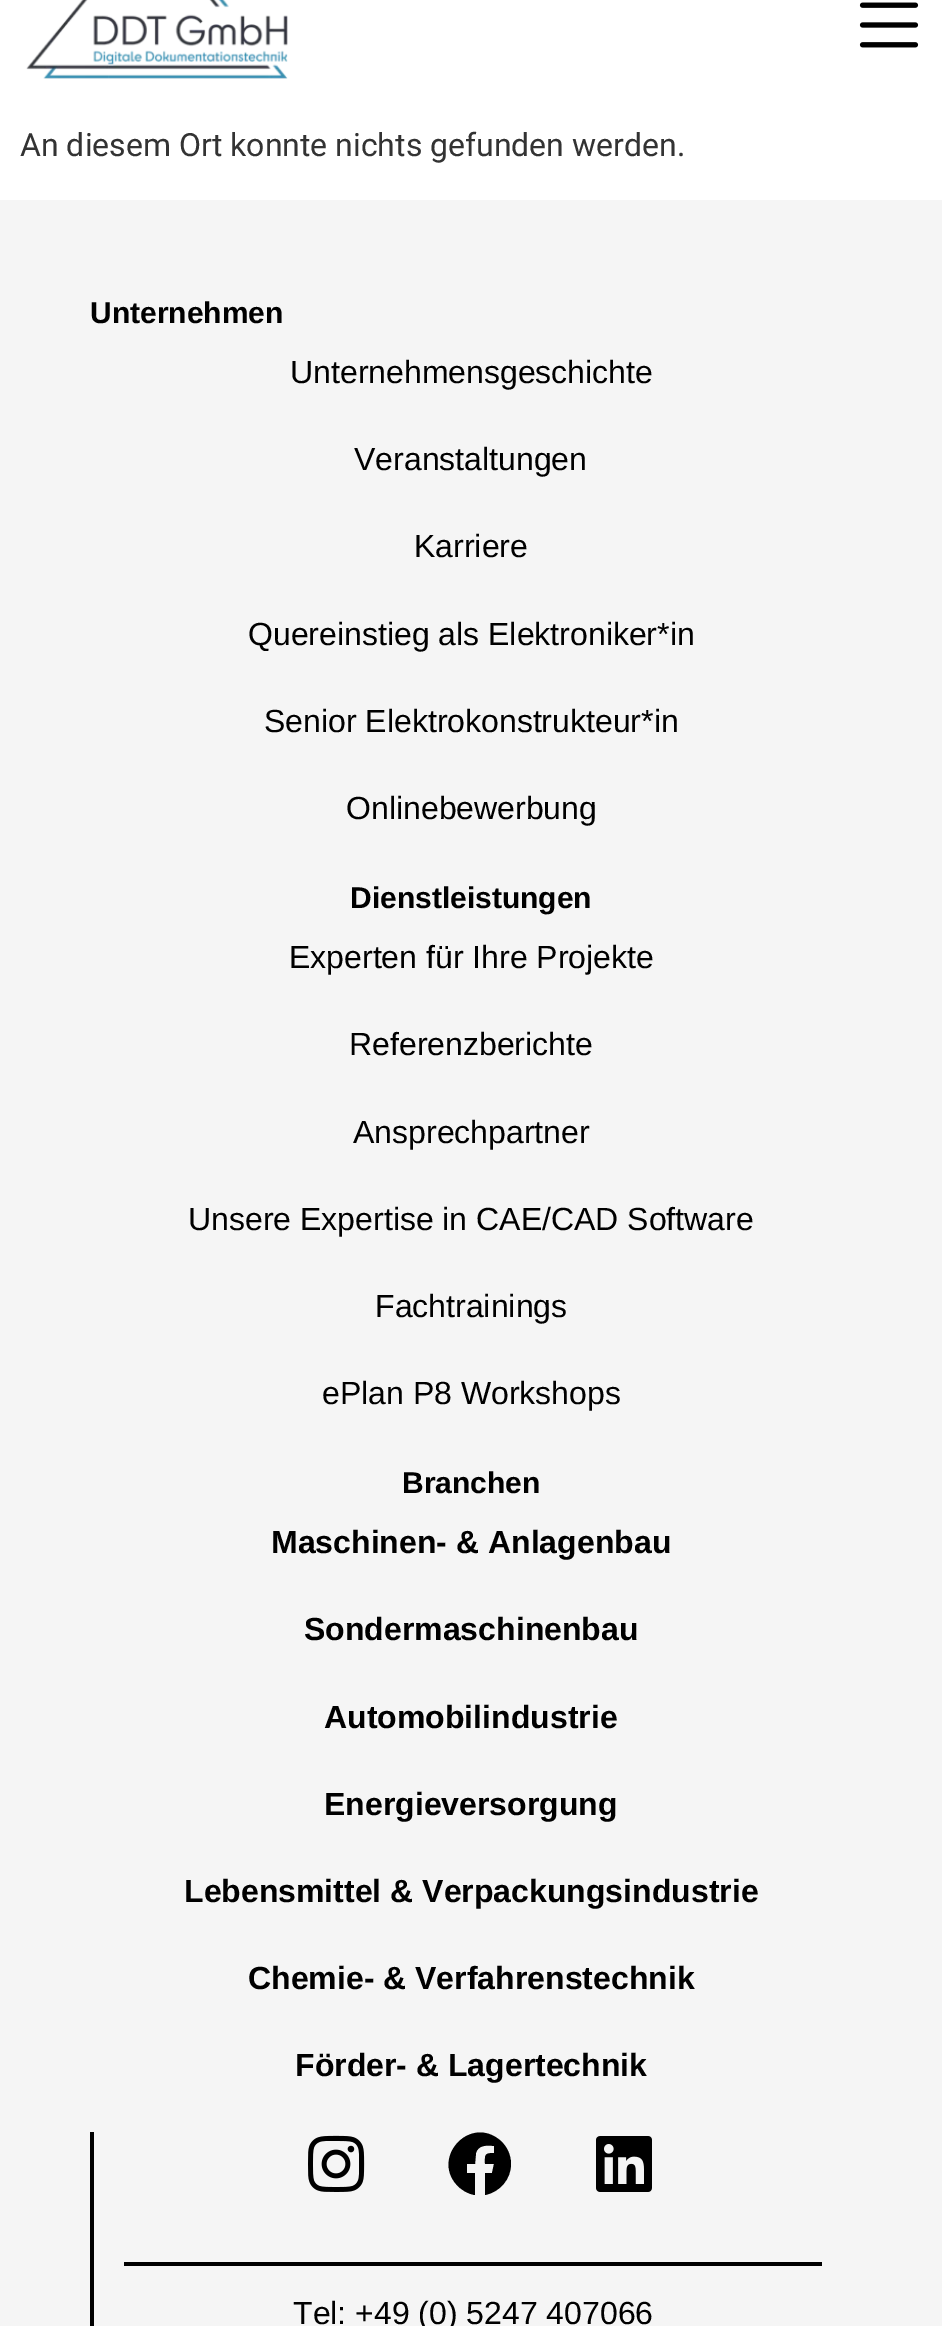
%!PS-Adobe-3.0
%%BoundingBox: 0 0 942 2326
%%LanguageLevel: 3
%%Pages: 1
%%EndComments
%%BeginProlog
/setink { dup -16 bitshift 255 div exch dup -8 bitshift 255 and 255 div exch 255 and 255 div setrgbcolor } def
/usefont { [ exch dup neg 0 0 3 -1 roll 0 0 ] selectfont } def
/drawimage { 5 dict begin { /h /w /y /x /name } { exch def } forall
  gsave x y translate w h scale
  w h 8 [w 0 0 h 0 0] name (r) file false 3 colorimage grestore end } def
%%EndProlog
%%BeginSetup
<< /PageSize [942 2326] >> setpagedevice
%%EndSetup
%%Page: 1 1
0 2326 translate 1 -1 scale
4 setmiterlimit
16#FFFFFF setink
0 0 942 2326 rectfill
(img1.raw) 26 0 262 79 drawimage
(img2.raw) 859 2 60 46 drawimage
/Roboto-Regular 32 usefont
16#333333 setink
20 156 moveto (An diesem Ort konnte nichts gefunden werden.) show
16#F5F5F5 setink
0 200 942 2126 rectfill
/LiberationSans-Bold 30 usefont
16#000000 setink
90 323 moveto (Unternehmen) show
/LiberationSans-Regular 32 usefont
[
    [(Unternehmensgeschichte) 290 383]
    [(Veranstaltungen) 354 470]
    [(Karriere) 414 557]
    [(Quereinstieg als Elektroniker*in) 248 645]
    [(Senior Elektrokonstrukteur*in) 264 732]
    [(Onlinebewerbung) 346 819]
] { aload pop moveto show } forall
/LiberationSans-Bold 30 usefont
350 908 moveto (Dienstleistungen) show
/LiberationSans-Regular 32 usefont
[
    [(Experten für Ihre Projekte) 289 968]
    [(Referenzberichte) 349 1055]
    [(Ansprechpartner) 353 1143]
    [(Unsere Expertise in CAE/CAD Software) 188 1230]
    [(Fachtrainings) 375 1317]
    [(ePlan P8 Workshops) 322 1404]
] { aload pop moveto show } forall
/LiberationSans-Bold 30 usefont
402 1493 moveto (Branchen) show
/LiberationSans-Bold 32 usefont
[
    [(Maschinen- & Anlagenbau) 271 1553]
    [(Sondermaschinenbau) 304 1640]
    [(Automobilindustrie) 324 1728]
    [(Energieversorgung) 324 1815]
    [(Lebensmittel & Verpackungsindustrie) 184 1902]
    [(Chemie- & Verfahrenstechnik) 248 1989]
    [(Förder- & Lagertechnik) 295 2076]
] { aload pop moveto show } forall
90 2132 4 194 rectfill
(img3.raw) 308 2135 57 57 drawimage
511 2164 moveto 511 2179 500 2192 485 2195 curveto 485 2173 lineto 492 2173 lineto 494 2164 lineto 485 2164 lineto 485 2155 484 2153 494 2153 curveto 494 2146 lineto 487 2145 478 2145 476 2153 curveto 475 2164 lineto 467 2164 lineto 467 2173 lineto 475 2173 lineto 475 2195 lineto 468 2194 461 2190 456 2184 curveto 433 2157 468 2118 497 2138 curveto 506 2144 511 2154 511 2164 curveto closepath fill
(img4.raw) 596 2136 56 56 drawimage
124 2262 698 4 rectfill
/LiberationSans-Regular 32 usefont
293 2324 moveto (Tel: +49 \(0\) 5247 407066) show
showpage
%%EOF
